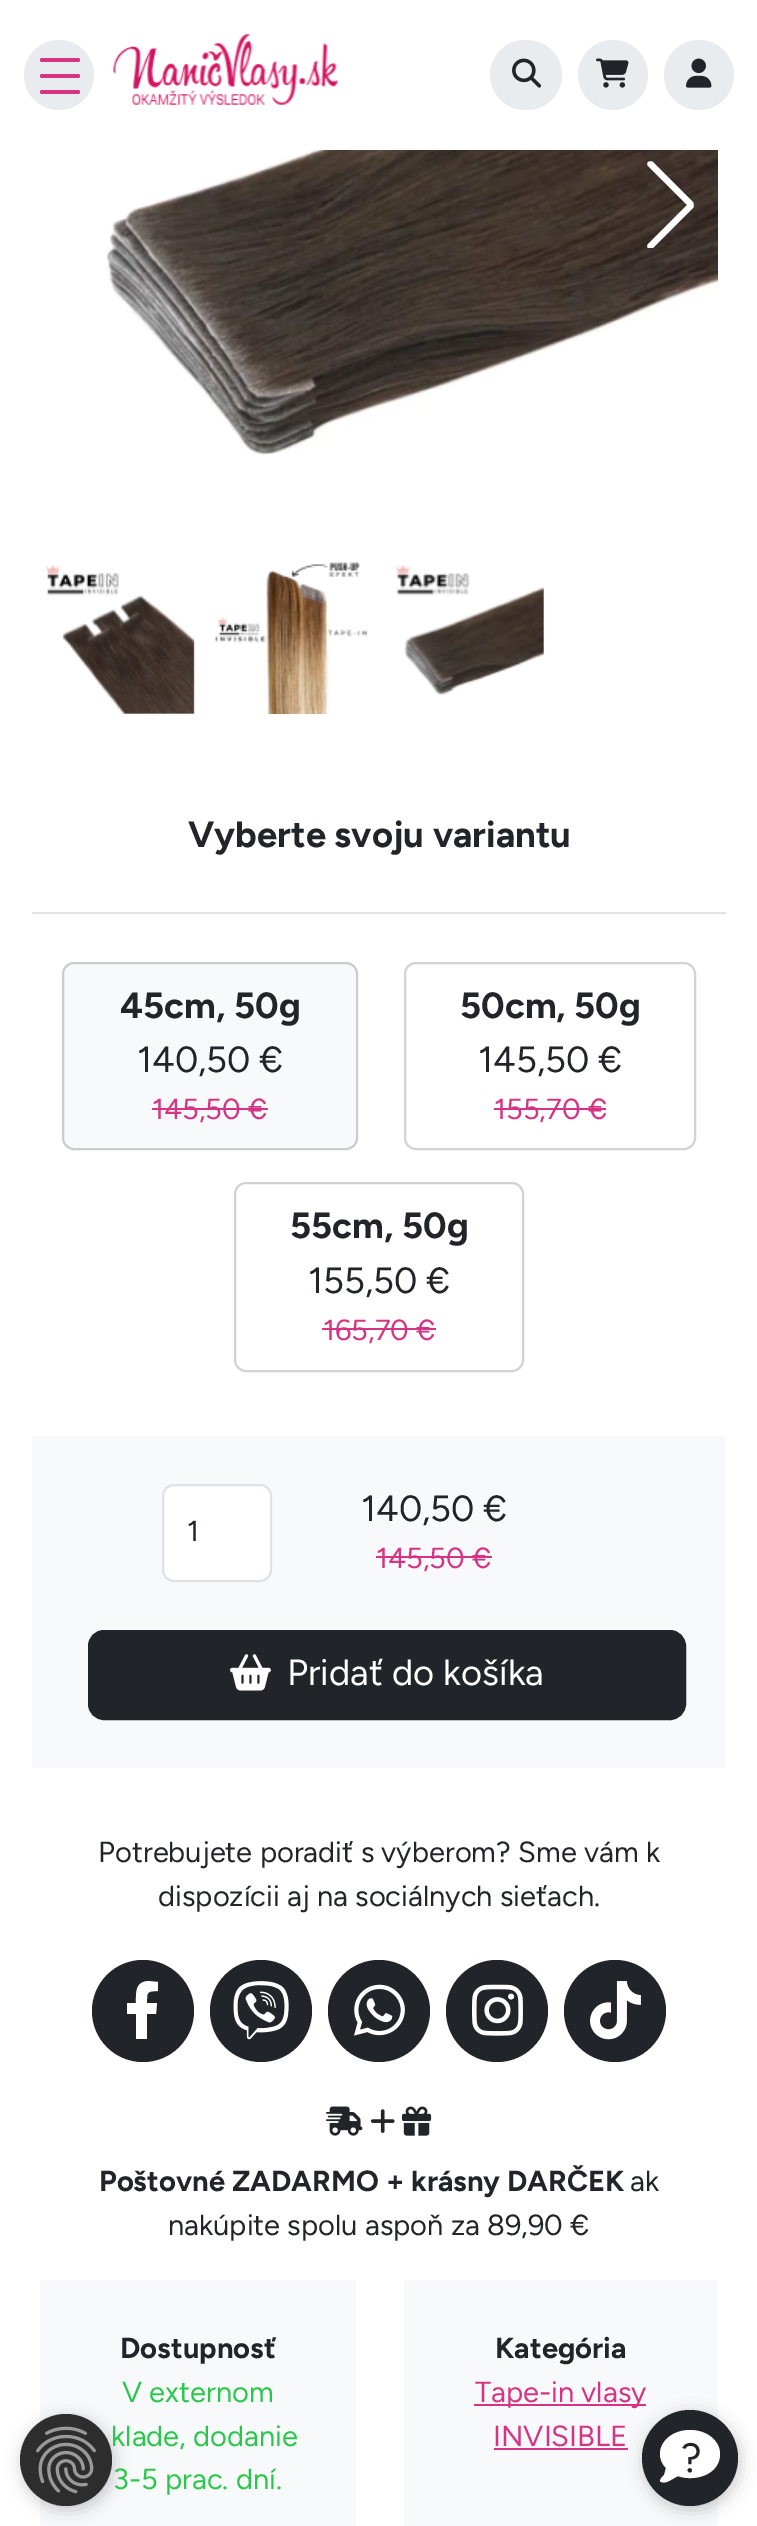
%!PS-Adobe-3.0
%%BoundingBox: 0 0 757 2526
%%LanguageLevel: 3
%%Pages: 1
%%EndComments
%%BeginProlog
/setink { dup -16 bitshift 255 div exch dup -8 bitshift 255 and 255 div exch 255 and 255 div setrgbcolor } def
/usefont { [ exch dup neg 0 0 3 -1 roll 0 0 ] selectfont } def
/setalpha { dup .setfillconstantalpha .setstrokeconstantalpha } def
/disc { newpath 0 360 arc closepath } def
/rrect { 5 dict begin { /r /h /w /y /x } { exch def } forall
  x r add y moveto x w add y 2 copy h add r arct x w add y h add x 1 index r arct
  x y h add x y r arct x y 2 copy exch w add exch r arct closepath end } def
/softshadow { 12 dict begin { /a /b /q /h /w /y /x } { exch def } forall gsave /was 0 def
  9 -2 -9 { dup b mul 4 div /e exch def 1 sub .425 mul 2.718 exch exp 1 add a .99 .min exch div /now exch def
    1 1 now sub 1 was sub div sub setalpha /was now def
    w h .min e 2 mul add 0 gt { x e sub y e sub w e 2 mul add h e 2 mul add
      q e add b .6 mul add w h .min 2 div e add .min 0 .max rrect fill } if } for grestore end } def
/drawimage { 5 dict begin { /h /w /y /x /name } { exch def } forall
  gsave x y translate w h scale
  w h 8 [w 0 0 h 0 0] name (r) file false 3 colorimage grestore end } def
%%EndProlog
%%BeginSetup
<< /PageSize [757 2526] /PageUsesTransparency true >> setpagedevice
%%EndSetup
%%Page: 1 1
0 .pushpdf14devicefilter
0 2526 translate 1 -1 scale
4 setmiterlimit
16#FFFFFF setink
0 0 757 2526 rectfill
16#F8F9FA setink
40 2280 316 246 rectfill
16#000000 setink
22 2418 92 92 46 8 0.2 softshadow
16#2D2D2D setink
66 2460 46 disc fill
(img1.raw) 36 2426 60 68 drawimage
16#E9ECEF setink
59 75 35 disc fill
16#D63384 setink
40 58 40 4 2 rrect fill
40 74 40 4 2 rrect fill
40 90 40 4 2 rrect fill
(img2.raw) 113 34 225 71 drawimage
16#E9ECEF setink
490 40 72 70 35 rrect fill
(img3.raw) 512 58 30 30 drawimage
613 75 35 disc fill
(img4.raw) 596 58 33 30 drawimage
699 75 35 disc fill
(img5.raw) 686 58 26 30 drawimage
(img6.raw) 73 150 645 305 drawimage
gsave
60 160 54 88 rectclip
16#FFFFFF setink
110 160 moveto 111 161 111 163 110 164 curveto 71 203 lineto 110 242 lineto 111 243 111 245 110 246 curveto 108 247 106 247 105 246 curveto 65 206 lineto 64 204 64 201 65 200 curveto 105 160 lineto 106 158 108 158 110 160 curveto closepath fill
grestore
gsave
644 160 54 88 rectclip
16#FFFFFF setink
648 248 moveto 647 247 647 245 648 244 curveto 687 205 lineto 648 166 lineto 647 165 647 163 648 162 curveto 650 161 652 161 653 162 curveto 693 202 lineto 694 204 694 207 693 208 curveto 653 248 lineto 652 250 650 250 648 248 curveto closepath fill
grestore
(img7.raw) 46 564 149 150 drawimage
(img8.raw) 215 562 153 152 drawimage
(img9.raw) 395 564 149 132 drawimage
16#DEE2E6 setink
32 912 694 2 rectfill
/Figtree-Light 36.4 usefont
16#212529 setink
188 847 moveto (Vyberte svoju variantu) show
16#F8F9FA setink
62 962 296 188 12 rrect fill
0.18 setalpha
16#000000 setink
2 setlinewidth
63 963 294 186 11 rrect stroke
1 setalpha
16#212529 setink
120 1018 moveto (45cm, 50g) show
/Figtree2-Light 36.4 usefont
137 1072 moveto (140,50 €) show
/Figtree2-Light 29.1 usefont
16#D63384 setink
152 1119 moveto (145,50 €) show
152 1108 116 2 rectfill
16#D2D2D2 setink
405 963 290 186 11 rrect stroke
/Figtree-Light 36.4 usefont
16#212529 setink
460 1018 moveto (50cm, 50g) show
/Figtree2-Light 36.4 usefont
478 1072 moveto (145,50 €) show
/Figtree2-Light 29.1 usefont
16#D63384 setink
494 1119 moveto (155,70 €) show
494 1108 112 2 rectfill
16#D2D2D2 setink
235 1183 288 188 11 rrect stroke
/Figtree-Light 36.4 usefont
16#212529 setink
290 1238 moveto (55cm, 50g) show
/Figtree2-Light 36.4 usefont
308 1293 moveto (155,50 €) show
/Figtree2-Light 29.1 usefont
16#D63384 setink
323 1340 moveto (165,70 €) show
322 1328 114 2 rectfill
16#F8F9FA setink
32 1436 694 332 rectfill
16#FFFFFF setink
163 1485 108 96 11 rrect gsave fill grestore
16#DEE2E6 setink
stroke
16#212529 setink
187 1541 moveto (1) show
/Figtree2-Light 36.4 usefont
361 1521 moveto (140,50 €) show
/Figtree2-Light 29.1 usefont
16#D63384 setink
376 1568 moveto (145,50 €) show
376 1556 116 2 rectfill
16#212529 setink
89 1631 596 88 15 rrect gsave fill grestore
stroke
(img10.raw) 230 1654 41 37 drawimage
/Figtree2-Light 36.4 usefont
16#FFFFFF setink
287 1685 moveto (Pridať do košíka) show
/Figtree2-Light 29.1 usefont
16#212529 setink
98 1862 moveto (Potrebujete poradiť s výberom? Sme vám k) show
158 1906 moveto (dispozícii aj na sociálnych sieťach.) show
143 2011 51 disc fill
16#FFFFFF setink
156 2014 moveto 157 2003 lineto 147 2003 lineto 147 1993 146 1991 158 1991 curveto 158 1982 lineto 148 1981 lineto 135 1982 136 1993 136 2003 curveto 127 2003 lineto 127 2014 lineto 136 2014 lineto 136 2039 lineto 147 2039 lineto 147 2014 lineto closepath fill
16#212529 setink
261 2011 51 disc fill
(img11.raw) 233 1981 56 59 drawimage
379 2011 51 disc fill
(img12.raw) 354 1984 51 52 drawimage
497 2011 51 disc fill
(img13.raw) 472 1984 51 52 drawimage
615 2011 51 disc fill
(img14.raw) 590 1981 51 59 drawimage
(img15.raw) 326 2106 37 30 drawimage
(img16.raw) 370 2109 25 24 drawimage
(img17.raw) 402 2106 30 30 drawimage
/Figtree-Light 29.1 usefont
99 2191 moveto (Poštovné ZADARMO + krásny DARČEK) show
/Figtree2-Light 29.1 usefont
630 2191 moveto (ak) show
168 2235 moveto (nakúpite spolu aspoň za 89,90 €) show
/Figtree-Light 29.1 usefont
120 2358 moveto (Dostupnosť) show
/Figtree2-Light 29.1 usefont
16#2BC74C setink
[
    [(V externom) 122 2402]
    [(klade, dodanie) 111 2446]
    [(3-5 prac. dní.) 113 2489]
] { aload pop moveto show } forall
16#F8F9FA setink
404 2280 314 246 rectfill
/Figtree-Light 29.1 usefont
16#212529 setink
495 2358 moveto (Kategória) show
16#D63384 setink
474 2404 172 2 rectfill
/Figtree2-Light 29.1 usefont
475 2402 moveto (Tape-in vlasy) show
493 2446 moveto (INVISIBLE) show
494 2448 134 2 rectfill
16#000000 setink
644 2414 96 96 48 8 0.2 softshadow
16#212529 setink
690 2458 48 disc fill
16#FFFFFF setink
720 2454 moveto 720 2475 694 2482 678 2476 curveto 669 2481 lineto 667 2482 664 2483 661 2482 curveto 658 2481 663 2476 664 2475 curveto 665 2473 665 2471 666 2468 curveto 662 2464 660 2459 660 2454 curveto 660 2441 673 2430 690 2430 curveto 707 2430 720 2441 720 2454 curveto closepath fill
/Figtree2-Light 41 usefont
16#212529 setink
681 2472 moveto (?) show
.poppdf14devicefilter showpage
%%EOF
